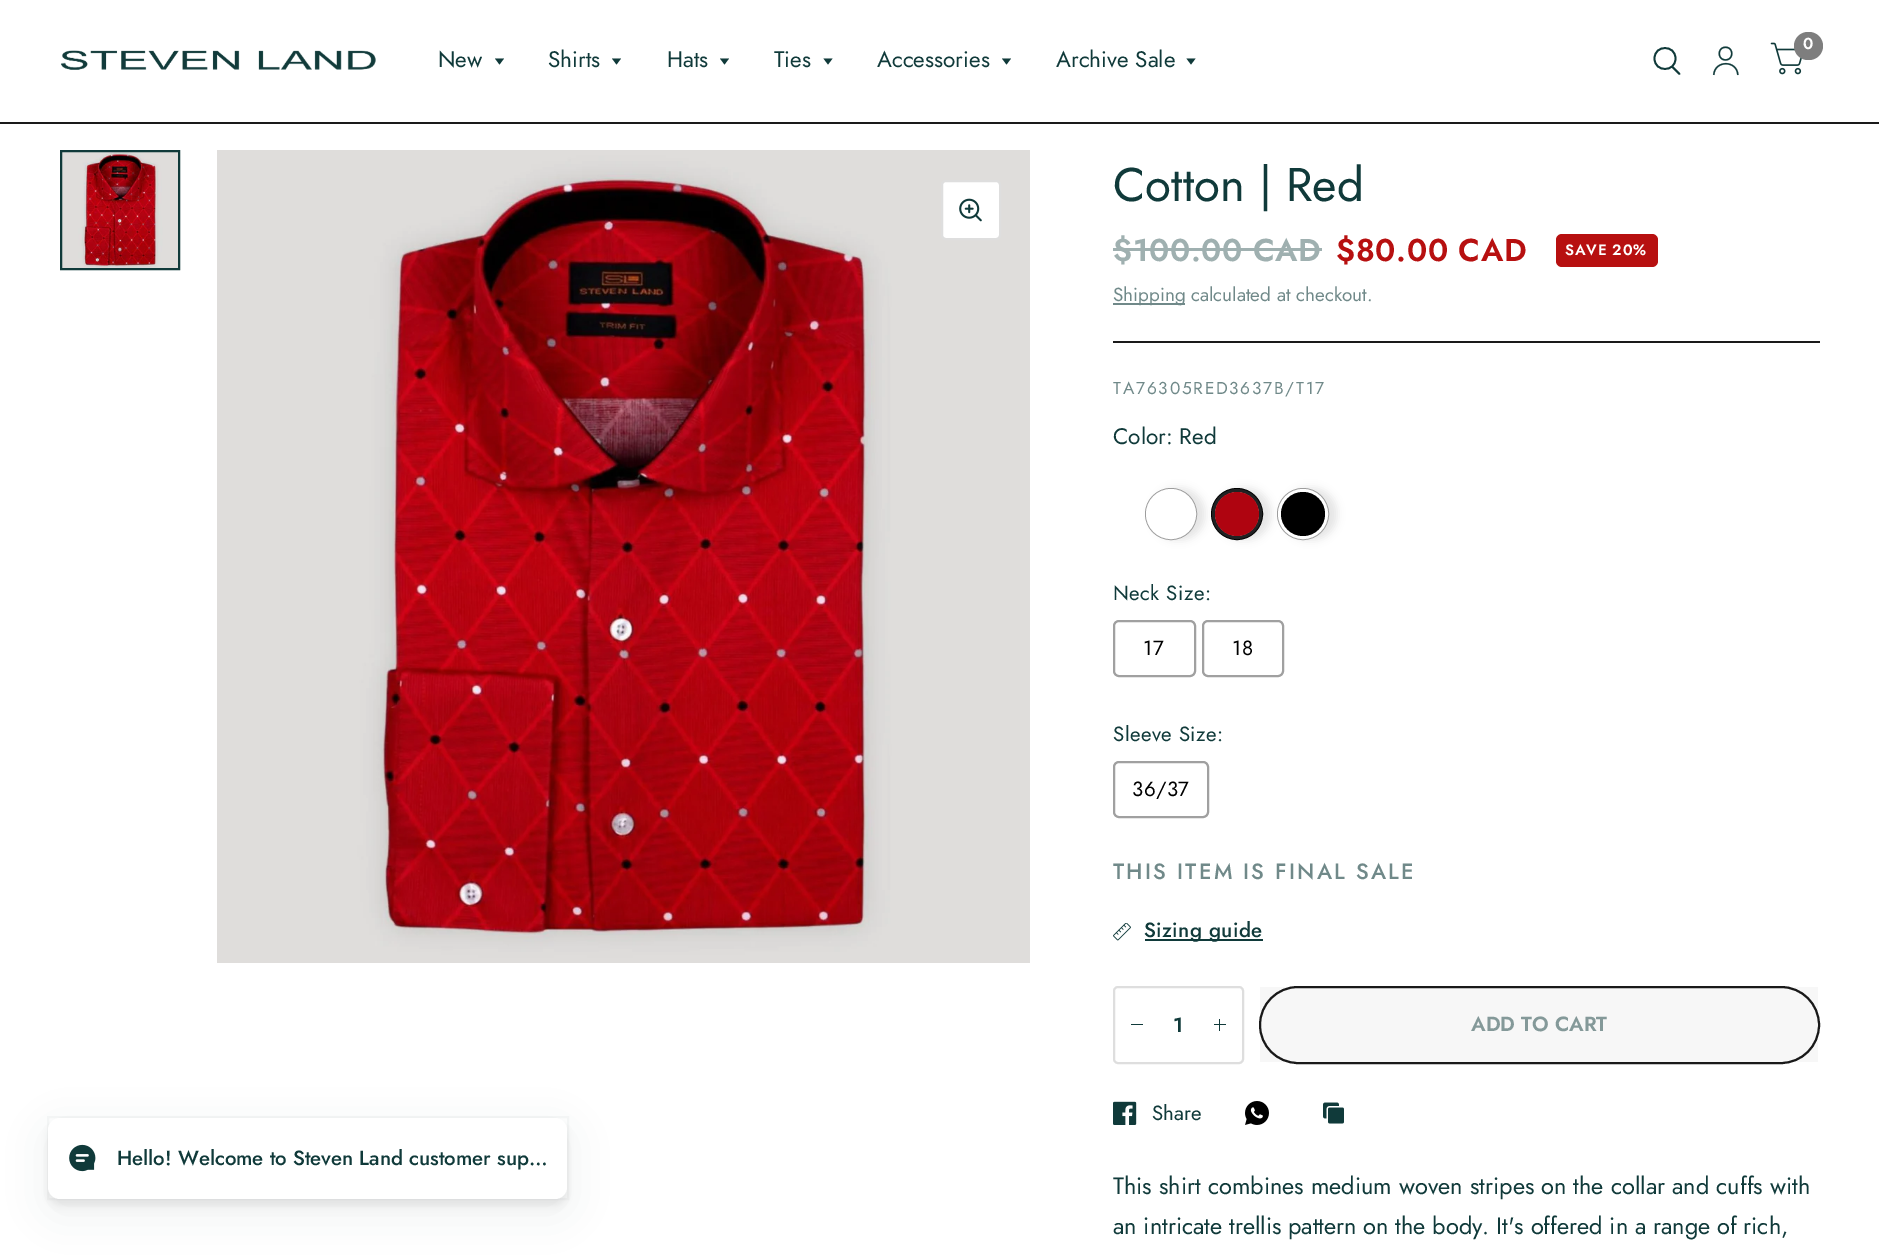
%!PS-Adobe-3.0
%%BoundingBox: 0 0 1879 1257
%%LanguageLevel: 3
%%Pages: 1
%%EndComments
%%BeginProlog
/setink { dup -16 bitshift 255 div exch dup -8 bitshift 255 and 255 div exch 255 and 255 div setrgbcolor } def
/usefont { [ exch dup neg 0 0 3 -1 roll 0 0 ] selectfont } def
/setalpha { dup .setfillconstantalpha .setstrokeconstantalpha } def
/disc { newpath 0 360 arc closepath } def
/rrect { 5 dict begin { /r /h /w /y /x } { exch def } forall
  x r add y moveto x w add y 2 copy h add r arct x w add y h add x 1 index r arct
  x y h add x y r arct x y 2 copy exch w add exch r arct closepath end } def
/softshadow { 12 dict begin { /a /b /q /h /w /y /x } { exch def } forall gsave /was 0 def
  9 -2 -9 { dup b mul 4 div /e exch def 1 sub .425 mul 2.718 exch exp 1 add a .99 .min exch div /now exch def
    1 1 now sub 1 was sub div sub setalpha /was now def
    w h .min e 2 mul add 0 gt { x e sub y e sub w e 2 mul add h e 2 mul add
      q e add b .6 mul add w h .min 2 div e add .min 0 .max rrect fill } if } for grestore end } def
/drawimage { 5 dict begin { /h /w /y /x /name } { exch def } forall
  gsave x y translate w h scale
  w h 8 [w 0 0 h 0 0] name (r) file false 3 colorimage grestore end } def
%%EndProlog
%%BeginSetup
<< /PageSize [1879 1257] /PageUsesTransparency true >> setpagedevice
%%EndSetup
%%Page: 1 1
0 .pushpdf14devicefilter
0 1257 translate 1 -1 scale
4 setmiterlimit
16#FFFFFF setink
0 0 1879 1257 rectfill
16#373F47 setink
48 1130 519 82 12 19 0.08 softshadow
48 1124 519 82 12 3 0.08 softshadow
0.04 setalpha
2 setlinewidth
48 1117 520 82 rectstroke
1 setalpha
16#FFFFFF setink
48 1118 519 81 12 rrect fill
(img1.raw) 69 1144 27 28 drawimage
/Jost-Medium 20.5 usefont
16#103A3A setink
117 1165 moveto (Hello! Welcome to Steven Land customer sup…) show
16#1A1A1A setink
0 122 1879 2 rectfill
(img2.raw) 1770 42 32 33 drawimage
16#7E7E7E setink
1794 32 29 28 14 rrect fill
/Jost-SemiBold 16 usefont
16#FFFFFF setink
1803 49 moveto (0) show
16#103A3A setink
1.8 setlinewidth
1 setlinecap
1 setlinejoin
1672.5 67 moveto 1679.5 74 lineto 1675.5 58.5 moveto 1675.5 72.5 1654.5 72.5 1654.5 58.5 curveto 1654.5 44.5 1675.5 44.5 1675.5 58.5 curveto closepath stroke
(img3.raw) 1712 46 27 30 drawimage
(img4.raw) 61 50 315 20 drawimage
/Jost-Regular 22.5 usefont
438 67 moveto (New) show
495 58.5 moveto 504 58.5 lineto 499.5 64.5 lineto closepath fill
548 67 moveto (Shirts) show
612 58.5 moveto 621 58.5 lineto 616.5 64.5 lineto closepath fill
667 67 moveto (Hats) show
720 58.5 moveto 729 58.5 lineto 724.5 64.5 lineto closepath fill
774 67 moveto (Ties) show
823.5 58.5 moveto 832.5 58.5 lineto 828 64.5 lineto closepath fill
877 67 moveto (Accessories) show
1002 58.5 moveto 1011 58.5 lineto 1006.5 64.5 lineto closepath fill
1056 67 moveto (Archive Sale) show
1186.5 58.5 moveto 1195.5 58.5 lineto 1191 64.5 lineto closepath fill
(img5.raw) 62 152 116 116 drawimage
2 setlinewidth
0 setlinecap
0 setlinejoin
61 151 118 118 rectstroke
(img6.raw) 217 150 813 813 drawimage
16#FFFFFF setink
942 181 58 58 4 rrect gsave fill grestore
16#DEDEDE setink
stroke
(img7.raw) 959 198 23 24 drawimage
16#1A1A1A setink
1113 341 707 2 rectfill
/Jost-Regular 47.25 usefont
16#103A3A setink
1113 201 moveto (Cotton | Red) show
/Jost-SemiBold 31.5 usefont
16#9FB0B0 setink
1113 261 moveto 0.6 0 ($100.00 CAD) ashow
1113 248 209 3 rectfill
16#B71010 setink
1336 261 moveto 0.6 0 ($80.00 CAD) ashow
1556 234 102 33 6 rrect fill
/Jost-SemiBold 15 usefont
16#FFFFFF setink
1565 255 moveto 0.75 0 (SAVE 20%) ashow
16#708989 setink
1113 303 72 2 rectfill
/Jost-Regular 18.9 usefont
1113 301 moveto (Shipping calculated at checkout.) show
/Jost-Regular 17.25 usefont
1113 394 moveto 1.75 0 (TA76305RED3637B/T17) ashow
/Jost-Regular 22.5 usefont
16#103A3A setink
1113 444 moveto (Color: Red) show
gsave
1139 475 moveto 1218 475 lineto 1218 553 lineto 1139 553 lineto closepath 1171 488 moveto 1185.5 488 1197 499.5 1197 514 curveto 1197 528.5 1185.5 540 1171 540 curveto 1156.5 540 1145 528.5 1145 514 curveto 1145 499.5 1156.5 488 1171 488 curveto closepath eoclip newpath
16#000000 setink
1152 488 53 52 26 4 0.1 softshadow
grestore
16#9D9D9D setink
1171 514 25 disc stroke
16#FFFFFF setink
3 setlinewidth
1171 514 23.5 disc stroke
16#000000 setink
1218 488 53 52 26 4 0.1 softshadow
2 setlinewidth
1237 514 25 disc stroke
16#202223 setink
3 setlinewidth
1237 514 23.5 disc stroke
16#AF0410 setink
1237 514 22 disc fill
16#000000 setink
1284 488 53 52 26 4 0.1 softshadow
16#9D9D9D setink
2 setlinewidth
1303 514 25 disc stroke
16#FFFFFF setink
3 setlinewidth
1303 514 23.5 disc stroke
16#000000 setink
1303 514 22 disc fill
/Jost-Regular 20.5 usefont
16#103A3A setink
1113 600 moveto 0.4 0 (Neck Size:) ashow
16#A0A0A0 setink
2 setlinewidth
1114 621 81 55 5 rrect stroke
16#000000 setink
1143 655 moveto 0.4 0 (17) ashow
16#A0A0A0 setink
1203 621 80 55 5 rrect stroke
16#000000 setink
1232 655 moveto 0.4 0 (18) ashow
16#103A3A setink
1113 741 moveto 0.4 0 (Sleeve Size:) ashow
16#A0A0A0 setink
1114 762 94 55 5 rrect stroke
16#000000 setink
1132 796 moveto 0.4 0 (36/37) ashow
/Jost-Medium 22 usefont
16#708989 setink
1113 879 moveto 2.25 0 (THIS ITEM IS FINAL SALE) ashow
(img8.raw) 1113 923 18 18 drawimage
16#103A3A setink
1145 939 118 2 rectfill
/Jost-Medium 20.5 usefont
1144 937 moveto 0.4 0 (Sizing guide) ashow
16#DEDEDE setink
1114 987 129 76 4 rrect stroke
16#103A3A setink
1131 1024 12 1 rectfill
/Jost-SemiBold 20.5 usefont
1173 1032 moveto (1) show
1219 1019 1 12 rectfill
1214 1024 12 1 rectfill
16#1A1A1A setink
1260 987 559 76 38 rrect stroke
0.03 setalpha
16#000000 setink
1260 987 558 75 rectfill
1 setalpha
16#849999 setink
1471 1031 moveto (ADD TO CART) show
(img9.raw) 1113 1101 24 24 drawimage
/Jost-Regular 20.5 usefont
16#103A3A setink
1152 1120 moveto (Share) show
(img10.raw) 1245 1101 24 24 drawimage
(img11.raw) 1323 1102 21 22 drawimage
/Jost-Regular 23.6 usefont
1113 1194 moveto -0.1 0 32 (This shirt combines medium woven stripes on the collar and cuffs with) widthshow
1113 1234 moveto -0.4 0 32 (an intricate trellis pattern on the body. It's offered in a range of rich,) widthshow
.poppdf14devicefilter showpage
%%EOF
